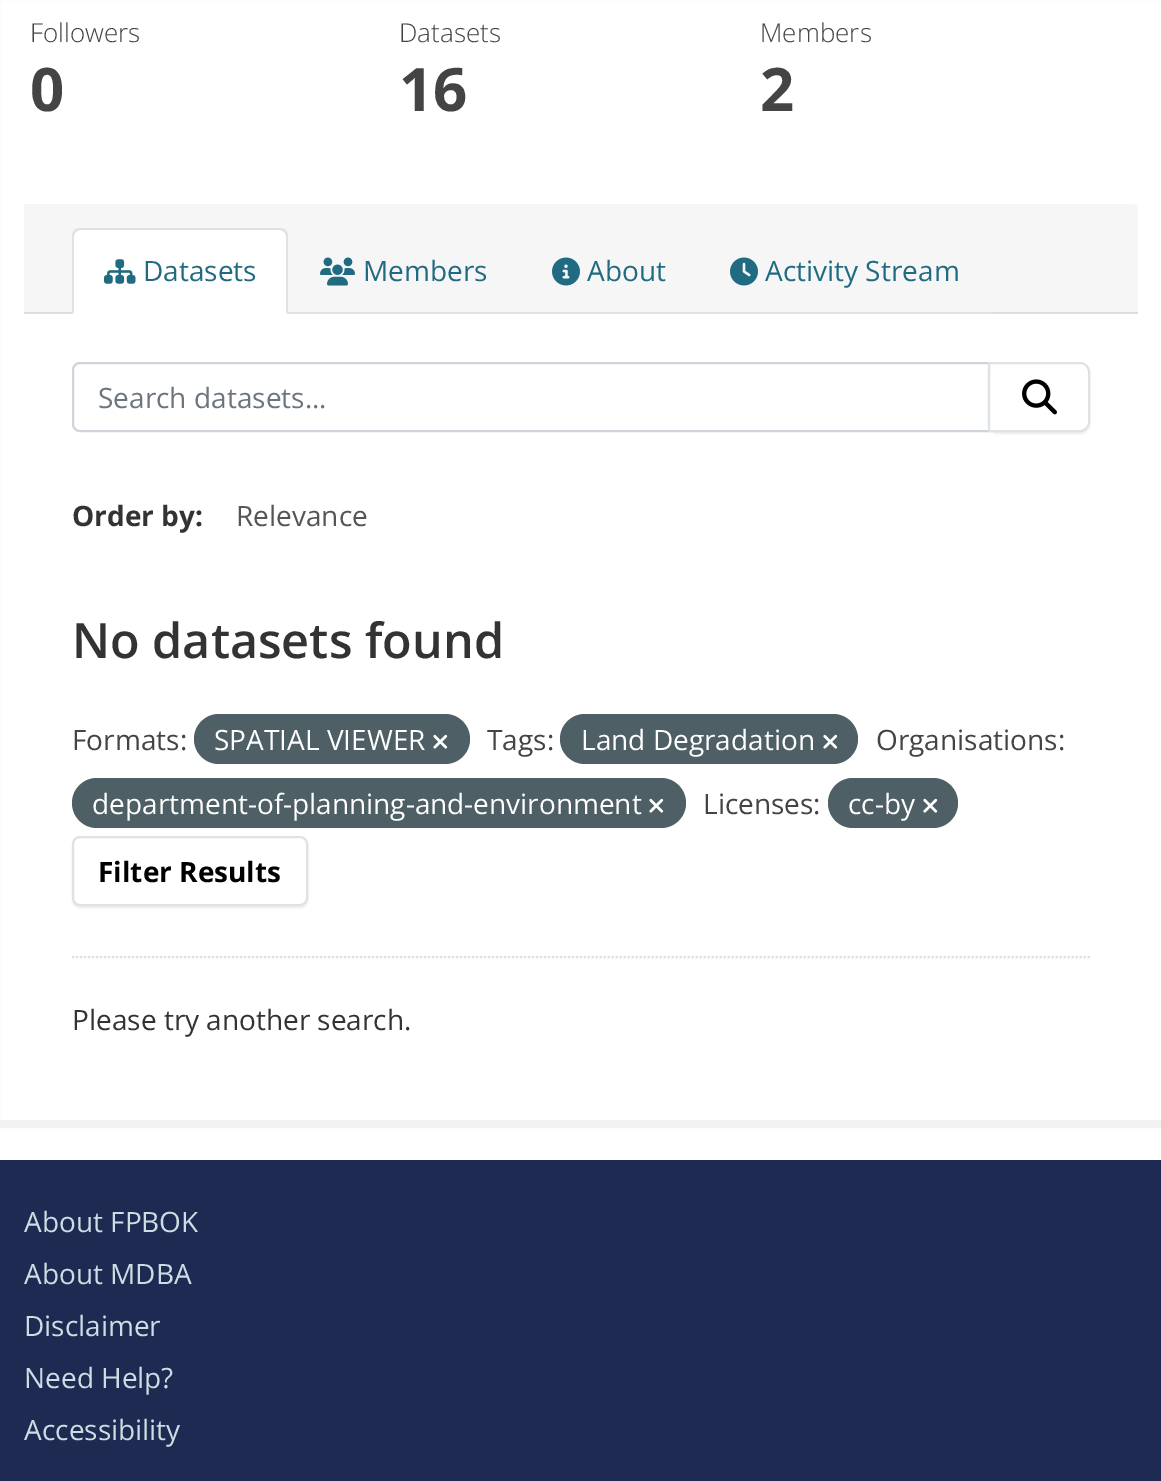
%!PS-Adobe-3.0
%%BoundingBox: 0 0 1161 1481
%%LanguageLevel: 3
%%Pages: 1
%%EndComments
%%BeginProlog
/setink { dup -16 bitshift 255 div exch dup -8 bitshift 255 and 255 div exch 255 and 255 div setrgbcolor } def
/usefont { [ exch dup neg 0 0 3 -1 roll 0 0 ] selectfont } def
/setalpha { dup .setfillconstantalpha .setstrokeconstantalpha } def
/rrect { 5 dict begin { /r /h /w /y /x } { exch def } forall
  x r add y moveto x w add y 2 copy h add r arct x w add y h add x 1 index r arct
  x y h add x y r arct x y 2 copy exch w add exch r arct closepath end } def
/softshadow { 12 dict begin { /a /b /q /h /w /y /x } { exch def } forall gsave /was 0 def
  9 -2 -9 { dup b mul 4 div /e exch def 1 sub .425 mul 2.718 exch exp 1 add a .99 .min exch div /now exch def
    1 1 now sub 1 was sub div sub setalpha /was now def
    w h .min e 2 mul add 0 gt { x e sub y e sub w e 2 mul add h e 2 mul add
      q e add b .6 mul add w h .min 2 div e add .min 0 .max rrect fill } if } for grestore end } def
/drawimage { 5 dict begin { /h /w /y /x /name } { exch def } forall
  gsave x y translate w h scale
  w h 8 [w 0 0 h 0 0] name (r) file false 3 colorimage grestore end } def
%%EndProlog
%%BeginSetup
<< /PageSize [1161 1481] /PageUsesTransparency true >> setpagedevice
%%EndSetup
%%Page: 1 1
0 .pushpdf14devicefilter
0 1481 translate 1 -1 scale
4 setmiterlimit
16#1E2A51 setink
0 0 1161 1481 rectfill
16#FFFFFF setink
0 0 1161 1160 rectfill
16#F2F2F2 setink
8 setlinewidth
-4 -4 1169 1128 rectstroke
/OpenSans-Light 26 usefont
16#444444 setink
30 42 moveto (Followers) show
/OpenSans-Bold 60 usefont
30 111 moveto (0) show
/OpenSans-Light 26 usefont
399 42 moveto (Datasets) show
/OpenSans-Bold 60 usefont
399 111 moveto (16) show
/OpenSans-Light 26 usefont
760 42 moveto (Members) show
/OpenSans-Bold 60 usefont
760 111 moveto (2) show
16#F6F6F6 setink
24 204 moveto 1132 204 lineto 1135.5 204 1138 206.5 1138 210 curveto 1138 314 lineto 24 314 lineto closepath fill
16#DDDDDD setink
24 312 1114 2 rectfill
16#DEE2E6 setink
288 312 704 2 rectfill
16#FFFFFF setink
80 228 moveto 280 228 lineto 284.5 228 288 231.5 288 236 curveto 288 314 lineto 72 314 lineto 72 236 lineto 72 231.5 75.5 228 80 228 curveto closepath fill
16#DEE2E6 setink
80 228 moveto 78 228 76 229 74 230 curveto 76 232 lineto 77 231 78 230 80 230 curveto 280 230 lineto 282 230 283 231 284 232 curveto 286 230 lineto 284 229 282 228 280 228 curveto closepath fill
288 314 moveto 288 236 lineto 288 234 287 232 286 230 curveto 284 232 lineto 286 235 lineto 286 312 lineto closepath fill
72 314 moveto 74 312 lineto 74 235 lineto 76 232 lineto 74 230 lineto 73 232 72 234 72 236 curveto closepath fill
(img1.raw) 104 259 32 25 drawimage
/OpenSans-Regular 28 usefont
16#206B82 setink
143 281 moveto (Datasets) show
(img2.raw) 320 257 35 29 drawimage
363 281 moveto (Members) show
(img3.raw) 552 257 28 29 drawimage
587 281 moveto (About) show
(img4.raw) 730 257 28 29 drawimage
765 281 moveto (Activity Stream) show
16#DDDDDD setink
2 setlinewidth
[2 2] 0 setdash
72 957 moveto 1090 957 lineto stroke
16#CED4DA setink
[] 0 setdash
80 363 moveto 989 363 lineto 989 431 lineto 80 431 lineto 76 431 73 428 73 424 curveto 73 370 lineto 73 366 76 363 80 363 curveto closepath stroke
16#6C757D setink
98 408 moveto (Search datasets...) show
16#000000 setink
988 364 102 70 10 1 0.07 softshadow
16#FFFFFF setink
989 363 moveto 1080 363 lineto 1085 363 1089 367 1089 372 curveto 1089 422 lineto 1089 427 1085 431 1080 431 curveto 989 431 lineto closepath gsave fill grestore
16#DEE2E6 setink
stroke
(img5.raw) 1022 379 35 36 drawimage
/OpenSans-Bold 28 usefont
16#333333 setink
72 526 moveto (Order by:) show
/OpenSans-Regular 28 usefont
16#555555 setink
236 526 moveto (Relevance) show
/OpenSans-SemiBold 48.5 usefont
16#333333 setink
72 658 moveto (No datasets found) show
/OpenSans-Regular 28 usefont
16#444444 setink
72 750 moveto (Formats:) show
16#4E5F65 setink
194 714 276 50 25 rrect fill
16#FFFFFF setink
214 750 moveto (SPATIAL VIEWER) show
(img6.raw) 433 734 15 15 drawimage
16#444444 setink
487 750 moveto (Tags:) show
16#4E5F65 setink
560 714 298 50 25 rrect fill
16#FFFFFF setink
581 750 moveto (Land Degradation) show
(img6.raw) 823 734 15 15 drawimage
16#444444 setink
876 750 moveto (Organisations:) show
16#4E5F65 setink
72 778 614 50 25 rrect fill
16#FFFFFF setink
92 814 moveto (department-of-planning-and-environment) show
(img6.raw) 649 798 15 15 drawimage
16#444444 setink
703 814 moveto (Licenses:) show
16#4E5F65 setink
828 778 130 50 25 rrect fill
16#FFFFFF setink
848 814 moveto (cc-by) show
(img6.raw) 923 798 15 15 drawimage
16#000000 setink
72 838 236 70 8 1 0.07 softshadow
16#FFFFFF setink
73 837 234 68 7 rrect gsave fill grestore
16#DEE2E6 setink
stroke
/OpenSans-Bold 28 usefont
16#000000 setink
98 882 moveto (Filter Results) show
/OpenSans-Regular 28 usefont
16#333333 setink
72 1030 moveto (Please try another search.) show
16#CCDEE3 setink
[
    [(About FPBOK) 24 1232]
    [(About MDBA) 24 1284]
    [(Disclaimer) 24 1336]
    [(Need Help?) 24 1388]
    [(Accessibility) 24 1440]
] { aload pop moveto show } forall
.poppdf14devicefilter showpage
%%EOF
